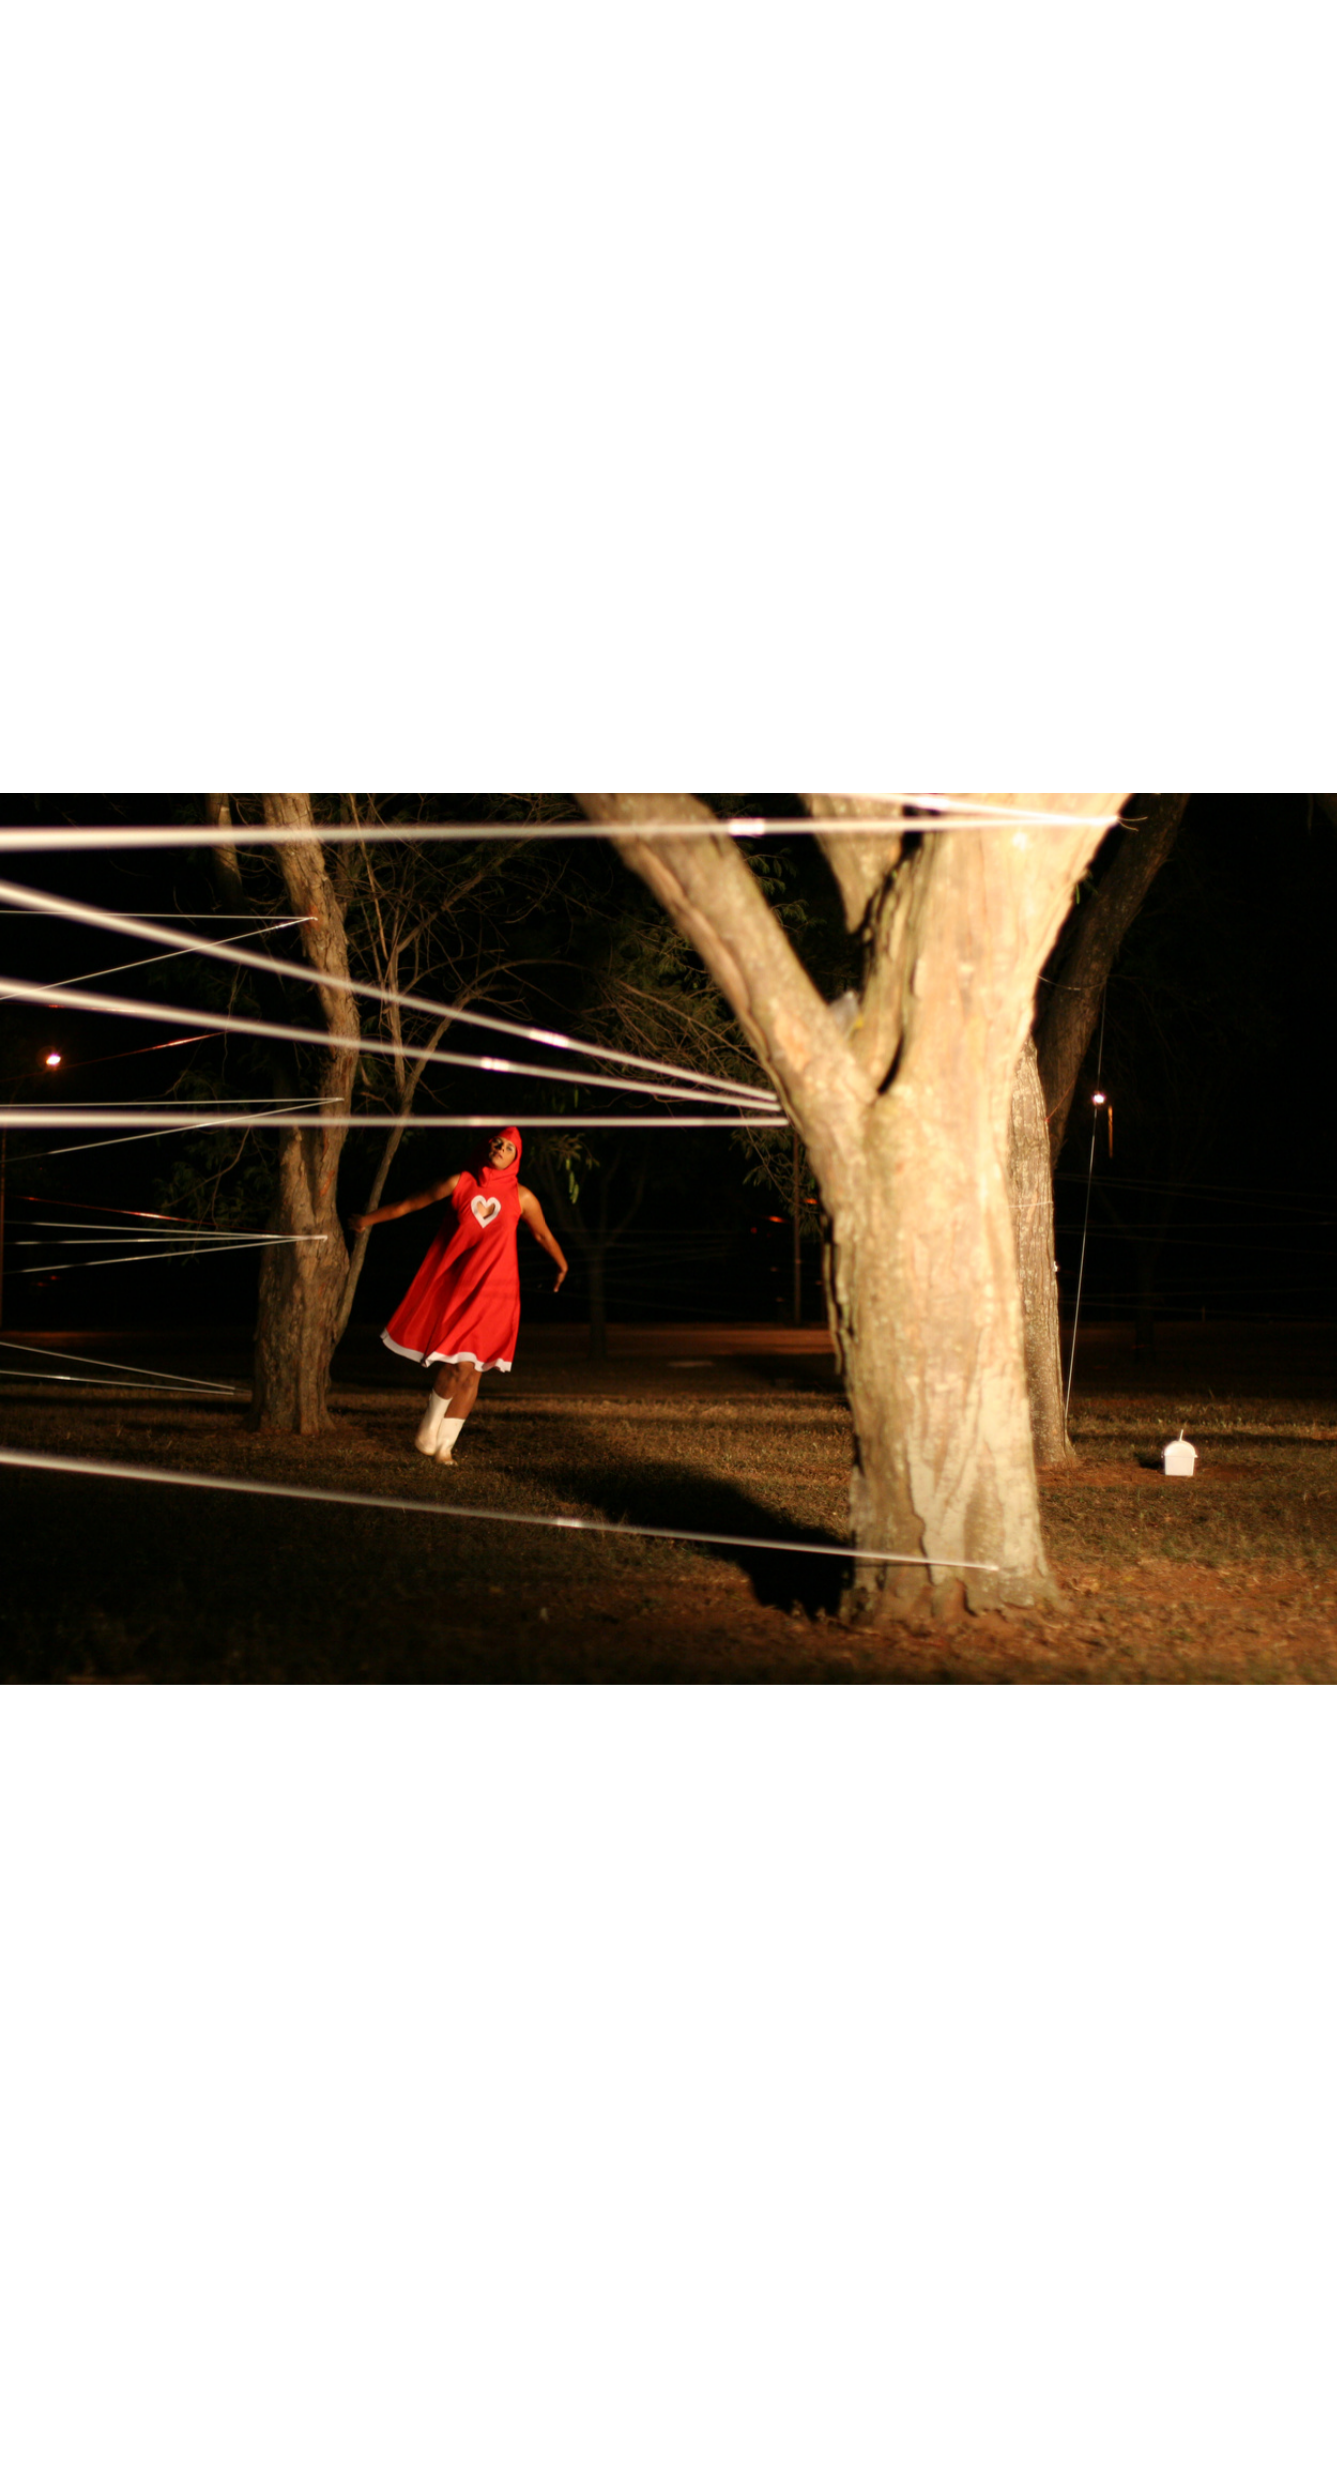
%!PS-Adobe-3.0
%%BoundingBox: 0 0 1337 2477
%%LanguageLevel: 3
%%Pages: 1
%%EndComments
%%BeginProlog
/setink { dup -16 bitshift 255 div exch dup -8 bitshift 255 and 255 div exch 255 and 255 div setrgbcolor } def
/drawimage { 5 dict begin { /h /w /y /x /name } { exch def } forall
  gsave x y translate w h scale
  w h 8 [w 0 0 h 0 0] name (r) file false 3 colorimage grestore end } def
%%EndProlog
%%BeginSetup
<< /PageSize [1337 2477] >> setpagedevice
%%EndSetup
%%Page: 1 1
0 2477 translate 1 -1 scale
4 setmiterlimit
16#FFFFFF setink
0 0 1337 2477 rectfill
(img1.raw) 0 793 1337 892 drawimage
showpage
%%EOF
